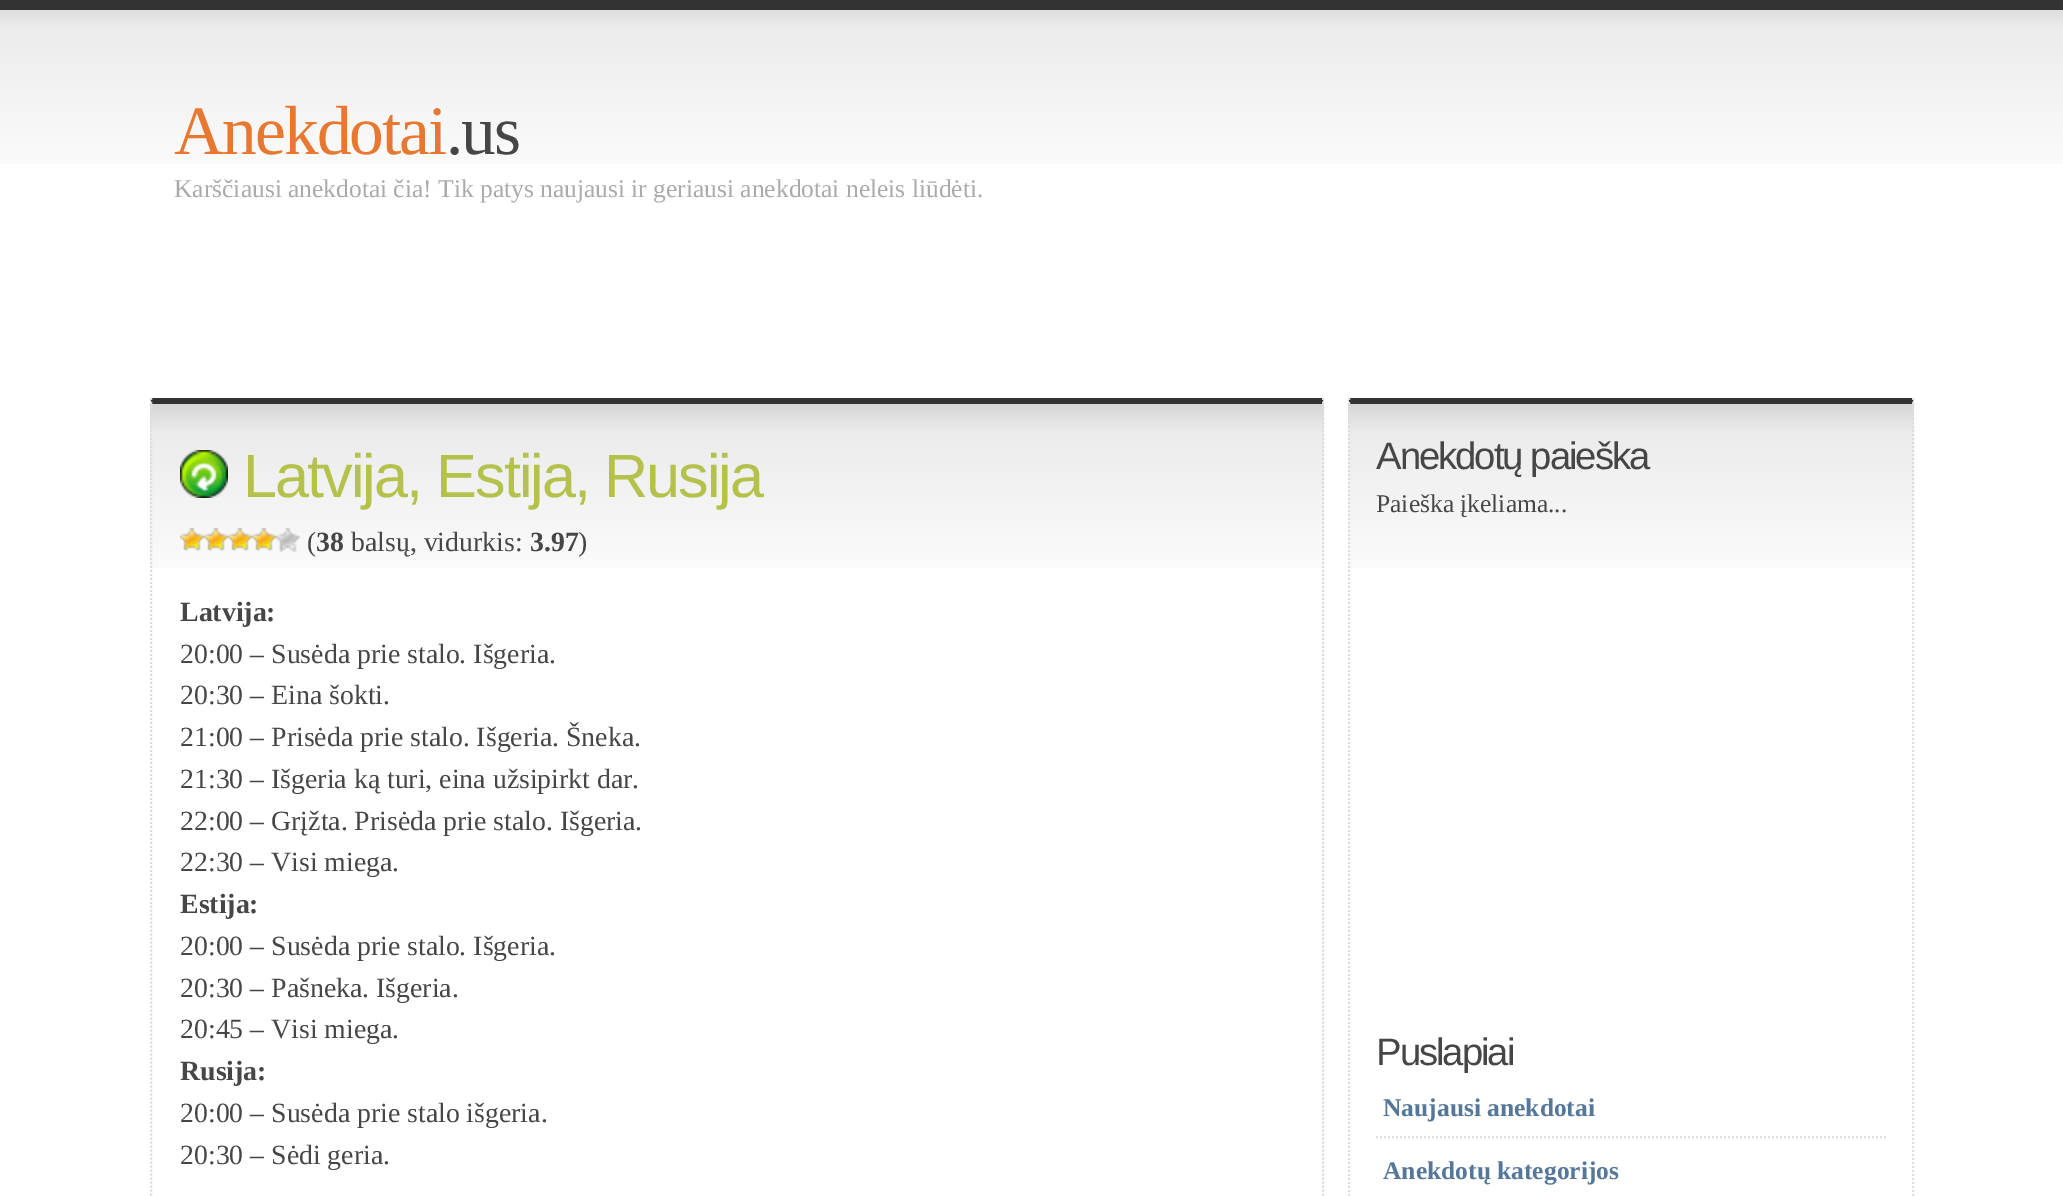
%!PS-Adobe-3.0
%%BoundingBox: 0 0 2063 1196
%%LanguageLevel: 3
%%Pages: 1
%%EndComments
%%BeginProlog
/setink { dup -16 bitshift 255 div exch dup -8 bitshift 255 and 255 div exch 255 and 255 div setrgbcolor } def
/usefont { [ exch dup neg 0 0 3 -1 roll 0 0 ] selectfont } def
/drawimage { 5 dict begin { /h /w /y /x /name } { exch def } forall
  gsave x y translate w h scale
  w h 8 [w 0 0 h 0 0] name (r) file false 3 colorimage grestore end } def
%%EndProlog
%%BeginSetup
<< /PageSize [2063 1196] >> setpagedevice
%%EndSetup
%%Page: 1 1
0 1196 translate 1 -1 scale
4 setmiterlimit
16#FFFFFF setink
0 0 2063 1196 rectfill
(img1.raw) 0 10 2063 154 drawimage
16#333333 setink
0 0 2063 10 rectfill
/LiberationSerif-Regular 69.5 usefont
16#E87830 setink
174 154 moveto -2 0 (Anekdotai) ashow
16#464646 setink
446 154 moveto -2 0 (.us) ashow
/LiberationSerif-Regular 25.5 usefont
16#AAAAAA setink
174 197 moveto (Karščiausi anekdotai čia! Tik patys naujausi ir geriausi anekdotai neleis liūdėti.) show
(img2.raw) 150 404 1174 164 drawimage
16#333333 setink
150 398 moveto 1324 398 lineto 1322 404 lineto 152 404 lineto closepath fill
16#DDDDDD setink
2 setlinewidth
[2 2] 0 setdash
1323 398 moveto 1323 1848 lineto stroke
151 398 moveto 151 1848 lineto stroke
(img3.raw) 180 450 48 48 drawimage
/LiberationSans-Regular 61.25 usefont
16#B4C24B setink
243 497 moveto -2 0 (Latvija, Estija, Rusija) ashow
(img4.raw) 180 528 24 23 drawimage
(img4.raw) 204 528 24 23 drawimage
(img4.raw) 228 528 24 23 drawimage
(img4.raw) 252 528 24 23 drawimage
(img5.raw) 276 528 24 24 drawimage
/LiberationSerif-Regular 27.8 usefont
16#464646 setink
307 551 moveto (\() show
/LiberationSerif-Bold 27.8 usefont
316 551 moveto (38) show
/LiberationSerif-Regular 27.8 usefont
351 551 moveto (balsų, vidurkis:) show
/LiberationSerif-Bold 27.8 usefont
530 551 moveto (3.97) show
/LiberationSerif-Regular 27.8 usefont
578 551 moveto (\)) show
/LiberationSerif-Bold 27.8 usefont
180 621 moveto (Latvija:) show
/LiberationSerif-Regular 27.8 usefont
[
    [(20:00 – Susėda prie stalo. Išgeria.) 180 663]
    [(20:30 – Eina šokti.) 180 704]
    [(21:00 – Prisėda prie stalo. Išgeria. Šneka.) 180 746]
    [(21:30 – Išgeria ką turi, eina užsipirkt dar.) 180 788]
    [(22:00 – Grįžta. Prisėda prie stalo. Išgeria.) 180 830]
    [(22:30 – Visi miega.) 180 871]
] { aload pop moveto show } forall
/LiberationSerif-Bold 27.8 usefont
180 913 moveto (Estija:) show
/LiberationSerif-Regular 27.8 usefont
[
    [(20:00 – Susėda prie stalo. Išgeria.) 180 955]
    [(20:30 – Pašneka. Išgeria.) 180 997]
    [(20:45 – Visi miega.) 180 1038]
] { aload pop moveto show } forall
/LiberationSerif-Bold 27.8 usefont
180 1080 moveto (Rusija:) show
/LiberationSerif-Regular 27.8 usefont
180 1122 moveto (20:00 – Susėda prie stalo išgeria.) show
180 1164 moveto (20:30 – Sėdi geria.) show
(img6.raw) 1348 404 566 164 drawimage
16#333333 setink
1348 398 moveto 1914 398 lineto 1912 404 lineto 1350 404 lineto closepath fill
16#DDDDDD setink
1913 398 moveto 1913 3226 lineto stroke
1349 398 moveto 1349 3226 lineto stroke
/LiberationSans-Regular 38.25 usefont
16#464646 setink
1376 469 moveto -2 0 (Anekdotų paieška) ashow
/LiberationSerif-Regular 25.5 usefont
1376 512 moveto (Paieška įkeliama...) show
/LiberationSans-Regular 38.25 usefont
1376 1065 moveto -2 0 (Puslapiai) ashow
16#DDDDDD setink
1376 1137 moveto 1886 1137 lineto stroke
/LiberationSerif-Bold 25.5 usefont
16#557799 setink
1383 1116 moveto (Naujausi anekdotai) show
1383 1179 moveto (Anekdotų kategorijos) show
showpage
%%EOF
